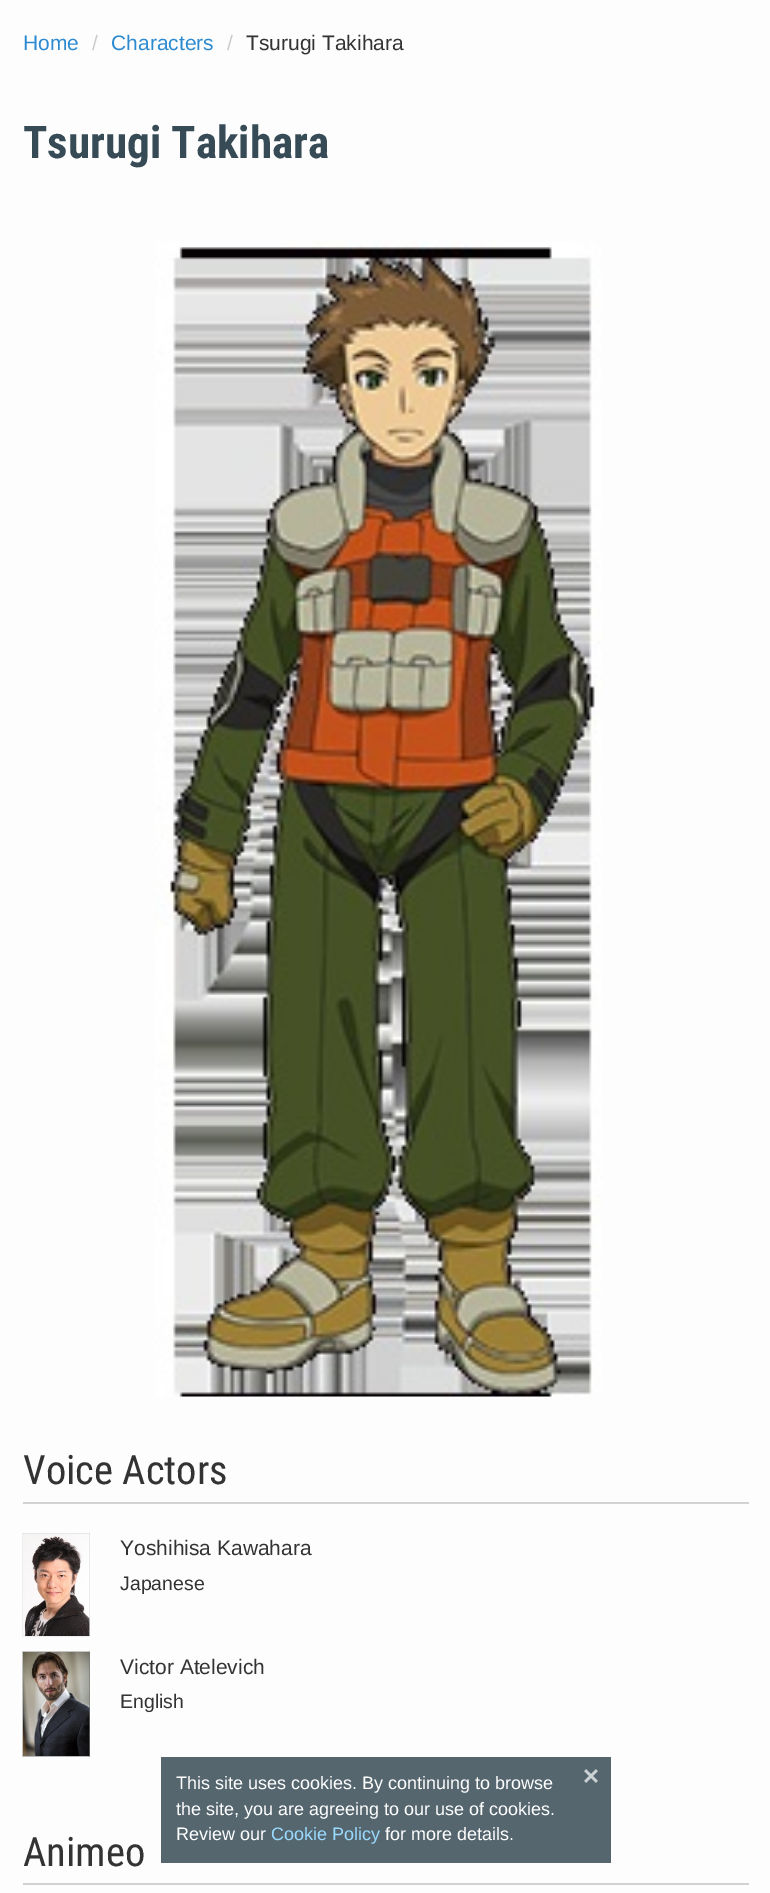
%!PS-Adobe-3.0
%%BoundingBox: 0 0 770 1893
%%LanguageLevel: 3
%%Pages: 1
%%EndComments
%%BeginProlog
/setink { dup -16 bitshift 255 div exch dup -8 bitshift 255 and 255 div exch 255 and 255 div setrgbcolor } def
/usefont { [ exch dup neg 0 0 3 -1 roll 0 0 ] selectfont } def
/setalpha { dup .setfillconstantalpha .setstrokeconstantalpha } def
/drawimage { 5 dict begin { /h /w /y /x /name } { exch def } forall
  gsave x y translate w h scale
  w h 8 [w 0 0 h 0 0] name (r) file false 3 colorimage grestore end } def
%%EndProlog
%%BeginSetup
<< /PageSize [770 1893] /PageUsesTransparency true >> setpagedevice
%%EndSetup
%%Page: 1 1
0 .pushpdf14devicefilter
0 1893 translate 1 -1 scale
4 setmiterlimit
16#FDFDFD setink
0 0 770 1893 rectfill
/LiberationSans-Regular 21 usefont
16#2D8AD0 setink
23 50 moveto (Home) show
16#CCCCCC setink
92 50 moveto (/) show
16#2D8AD0 setink
111 50 moveto (Characters) show
16#CCCCCC setink
227 50 moveto (/) show
16#333333 setink
246 50 moveto (Tsurugi Takihara) show
/RobotoCondensed-Bold 45 usefont
16#374B56 setink
23 158 moveto (Tsurugi Takihara) show
(img1.raw) 155 241 447 1156 drawimage
16#D0D2D4 setink
23 1502 726 2 rectfill
/RobotoCondensed-Regular 40.5 usefont
16#333333 setink
23 1484 moveto (Voice Actors) show
(img2.raw) 22 1533 68 104 drawimage
/LiberationSans-Regular 21 usefont
120 1555 moveto (Yoshihisa Kawahara) show
/LiberationSans-Regular 19.5 usefont
120 1590 moveto (Japanese) show
(img3.raw) 22 1651 68 106 drawimage
/LiberationSans-Regular 21 usefont
120 1674 moveto (Victor Atelevich) show
/LiberationSans-Regular 19.5 usefont
120 1708 moveto (English) show
16#D0D2D4 setink
23 1883 726 2 rectfill
/RobotoCondensed-Regular 40.5 usefont
16#333333 setink
23 1866 moveto (Animeo) show
0.85 setalpha
16#374B56 setink
161 1757 450 106 rectfill
/LiberationSans-Regular 18 usefont
1 setalpha
16#FFFFFF setink
176 1789 moveto (This site uses cookies. By continuing to browse) show
(img4.raw) 584 1769 14 14 drawimage
176 1815 moveto (the site, you are agreeing to our use of cookies.) show
176 1840 moveto (Review our) show
16#9ADBFF setink
271 1840 moveto (Cookie Policy) show
16#FFFFFF setink
385 1840 moveto (for more details.) show
.poppdf14devicefilter showpage
%%EOF
